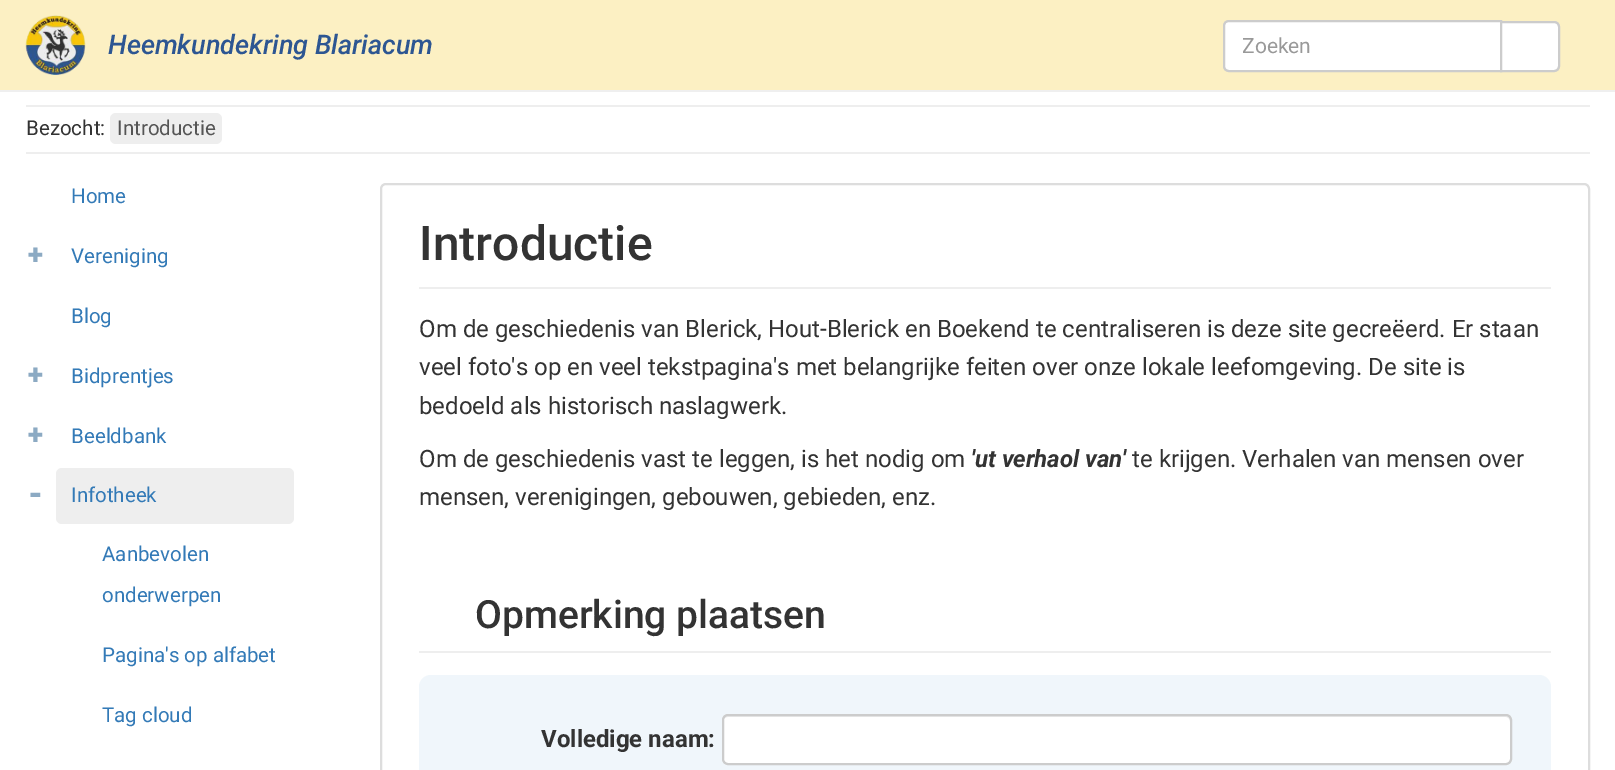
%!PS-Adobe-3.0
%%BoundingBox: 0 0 1615 770
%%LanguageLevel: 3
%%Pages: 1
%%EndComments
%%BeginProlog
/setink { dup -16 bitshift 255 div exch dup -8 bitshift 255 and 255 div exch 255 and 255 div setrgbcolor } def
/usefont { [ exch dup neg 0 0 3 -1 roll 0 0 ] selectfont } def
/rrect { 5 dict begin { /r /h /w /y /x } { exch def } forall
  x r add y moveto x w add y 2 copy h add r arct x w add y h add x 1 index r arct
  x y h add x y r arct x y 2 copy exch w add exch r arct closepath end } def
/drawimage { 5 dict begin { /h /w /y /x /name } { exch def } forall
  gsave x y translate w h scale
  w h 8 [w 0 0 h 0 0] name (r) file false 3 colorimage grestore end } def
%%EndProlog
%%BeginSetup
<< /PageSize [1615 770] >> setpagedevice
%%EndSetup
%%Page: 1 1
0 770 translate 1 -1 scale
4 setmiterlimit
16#FFFFFF setink
0 0 1615 770 rectfill
16#FCF0C3 setink
0 0 1615 90 rectfill
16#EFEFEF setink
0 90 1615 2 rectfill
(img1.raw) 25 15 61 60 drawimage
/Roboto-MediumItalic 27 usefont
16#2D5692 setink
108 54 moveto (Heemkundekring Blariacum) show
16#FFFFFF setink
1229 21 moveto 1501 21 lineto 1501 71 lineto 1229 71 lineto 1226 71 1224 69 1224 66 curveto 1224 26 lineto 1224 23 1226 21 1229 21 curveto closepath gsave fill grestore
16#CCCCCC setink
2 setlinewidth
stroke
/Roboto-Regular 21 usefont
16#999999 setink
1242 53 moveto (Zoeken) show
16#FFFFFF setink
1501 22 moveto 1554 22 lineto 1557 22 1559 24 1559 27 curveto 1559 66 lineto 1559 69 1557 71 1554 71 curveto 1501 71 lineto closepath gsave fill grestore
16#CCCCCC setink
stroke
16#EEEEEE setink
26 105 1564 2 rectfill
/Roboto-Regular 20.5 usefont
16#333333 setink
26 135 moveto (Bezocht:) show
16#EEEEEE setink
110 113 112 31 6 rrect fill
16#555555 setink
117 135 moveto (Introductie) show
16#EEEEEE setink
26 152 1564 2 rectfill
16#337AB7 setink
71 203 moveto (Home) show
/Roboto-Black 28 usefont
16#8CAAC3 setink
28 264 moveto (+) show
/Roboto-Regular 20.5 usefont
16#337AB7 setink
71 263 moveto (Vereniging) show
71 323 moveto (Blog) show
/Roboto-Black 28 usefont
16#8CAAC3 setink
28 384 moveto (+) show
/Roboto-Regular 20.5 usefont
16#337AB7 setink
71 383 moveto (Bidprentjes) show
/Roboto-Black 28 usefont
16#8CAAC3 setink
28 444 moveto (+) show
/Roboto-Regular 20.5 usefont
16#337AB7 setink
71 443 moveto (Beeldbank) show
/Roboto-Black 33 usefont
16#8CAAC3 setink
28 505 moveto (-) show
16#EEEEEE setink
56 468 238 56 6 rrect fill
/Roboto-Regular 20.5 usefont
16#337AB7 setink
[
    [(Infotheek) 71 502]
    [(Aanbevolen) 102 561]
    [(onderwerpen) 102 602]
    [(Pagina's op alfabet) 102 662]
    [(Tag cloud) 102 722]
] { aload pop moveto show } forall
16#DDDDDD setink
381 184 1208 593 5 rrect stroke
16#EEEEEE setink
419 287 1132 2 rectfill
/Roboto-Medium 48 usefont
16#333333 setink
419 260 moveto (Introductie) show
/Roboto-Regular 24 usefont
[
    [(Om de geschiedenis van Blerick, Hout-Blerick en Boekend te centraliseren is deze site gecreëerd. Er staan) 419 337]
    [(veel foto's op en veel tekstpagina's met belangrijke feiten over onze lokale leefomgeving. De site is) 419 375]
    [(bedoeld als historisch naslagwerk.) 419 414]
    [(Om de geschiedenis vast te leggen, is het nodig om) 419 467]
] { aload pop moveto show } forall
/Roboto-BoldItalic 24 usefont
971 467 moveto ('ut verhaol van') show
/Roboto-Regular 24 usefont
1132 467 moveto (te krijgen. Verhalen van mensen over) show
419 505 moveto (mensen, verenigingen, gebouwen, gebieden, enz.) show
16#EEEEEE setink
419 651 1132 2 rectfill
/Roboto-Medium 39 usefont
16#333333 setink
475 628 moveto (Opmerking plaatsen) show
16#F0F6FB setink
419 675 1132 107 12 rrect fill
/Roboto-Bold 24 usefont
16#333333 setink
541 747 moveto (Volledige naam:) show
16#FFFFFF setink
722 714 790 51 6 rrect fill
16#ECECEC setink
728 717 moveto 1506 717 lineto 1508 717 1510 719 1510 722 curveto 1510 760 lineto 1509 763 lineto 1511 760 lineto 1511 721 lineto 1510 718 lineto 1509 717 1508 716 1507 716 curveto 728 716 lineto 725 716 723 719 723 722 curveto 723 719 725 717 728 717 curveto closepath fill
16#CCCCCC setink
723 715 788 49 5 rrect stroke
showpage
%%EOF
